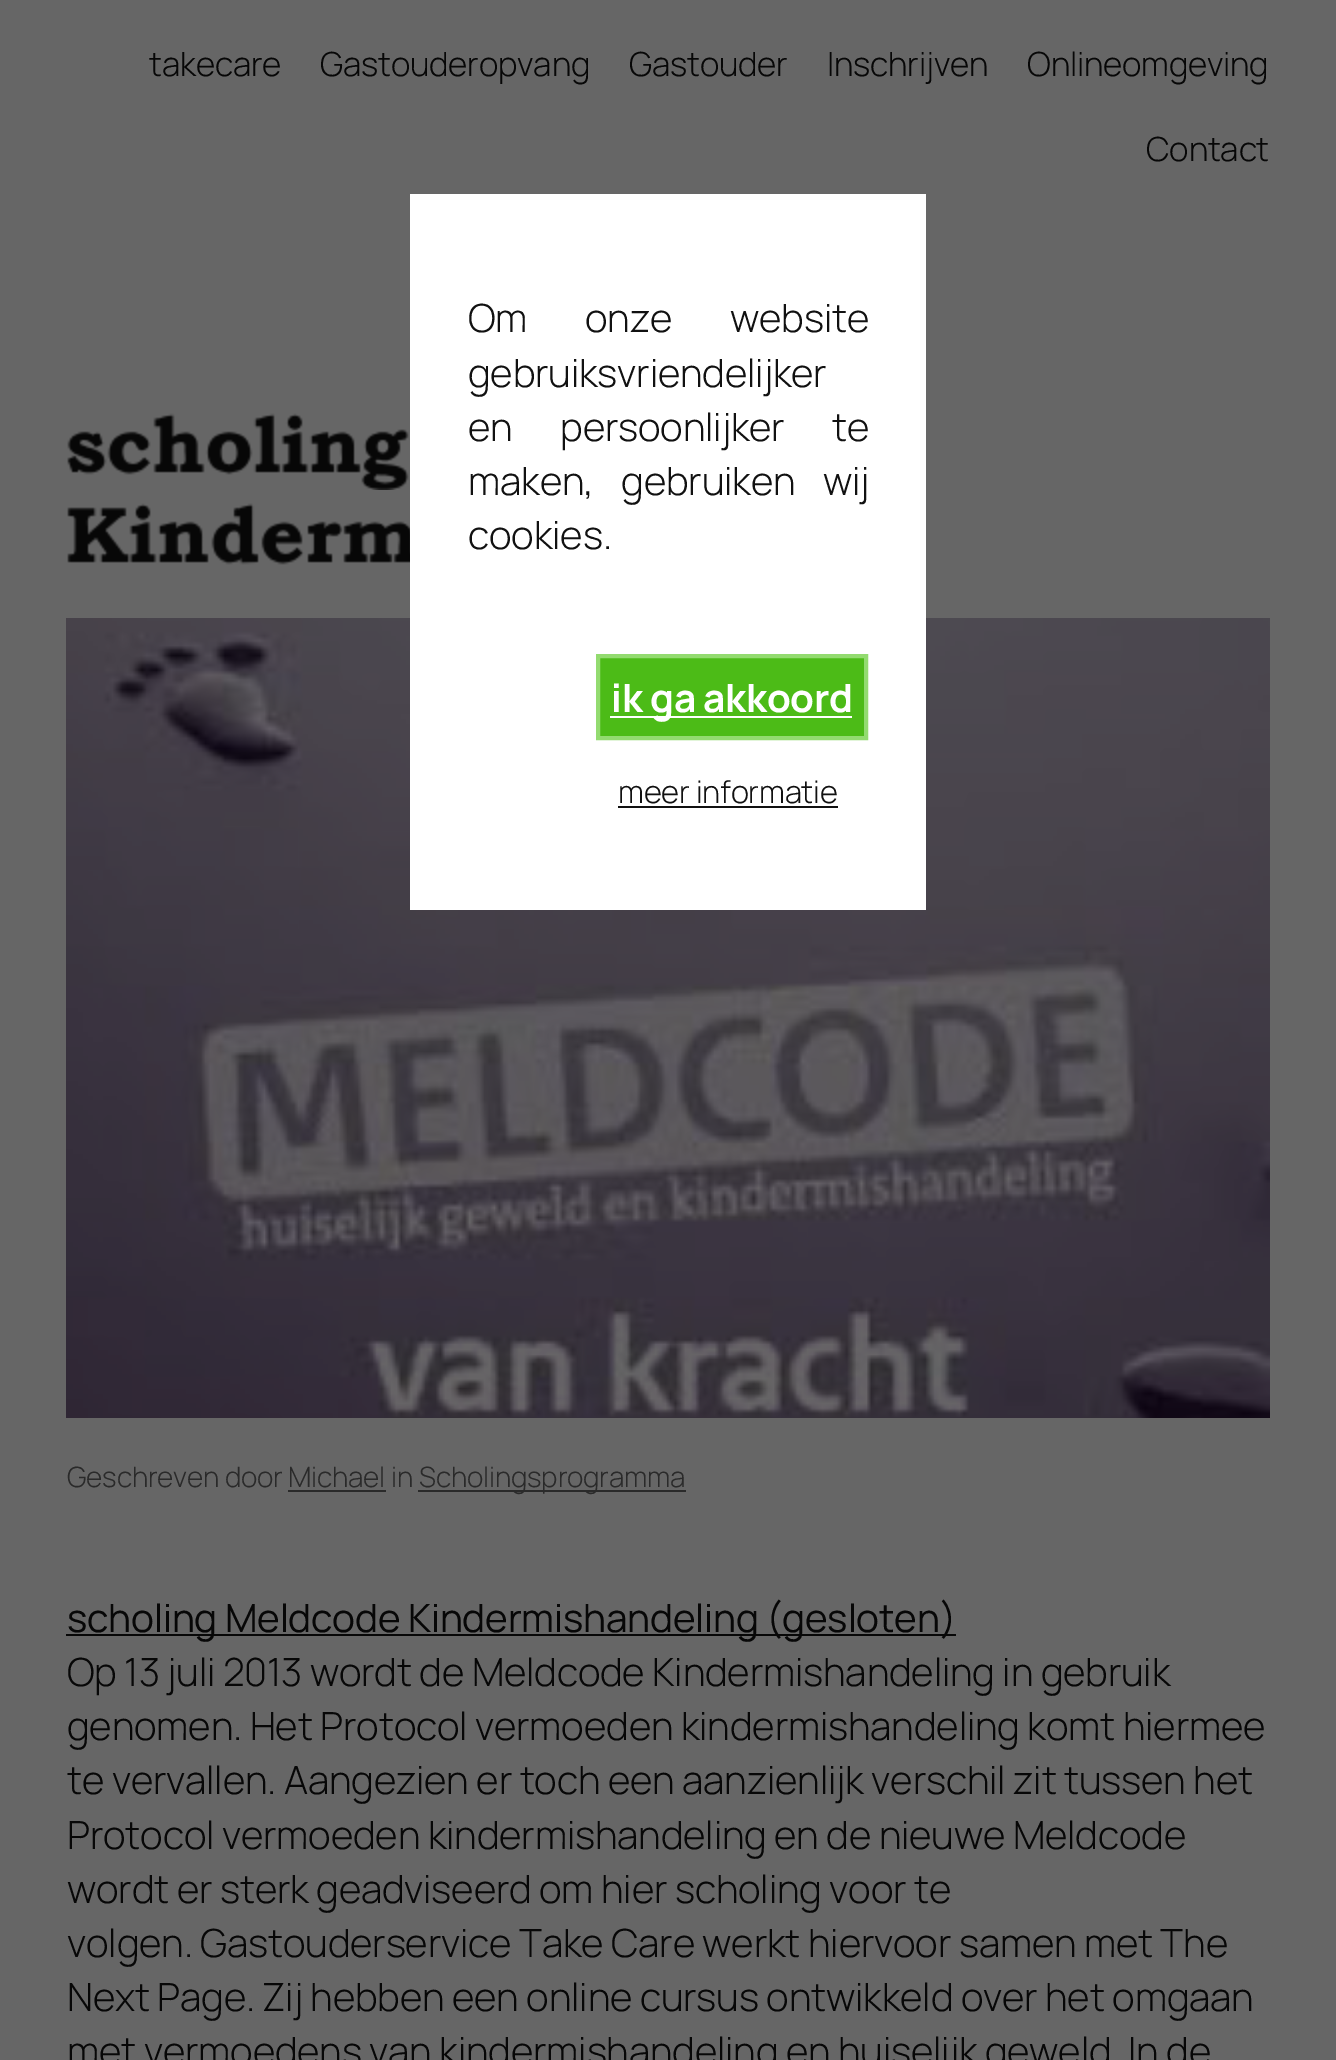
%!PS-Adobe-3.0
%%BoundingBox: 0 0 1336 2060
%%LanguageLevel: 3
%%Pages: 1
%%EndComments
%%BeginProlog
/setink { dup -16 bitshift 255 div exch dup -8 bitshift 255 and 255 div exch 255 and 255 div setrgbcolor } def
/usefont { [ exch dup neg 0 0 3 -1 roll 0 0 ] selectfont } def
/drawimage { 5 dict begin { /h /w /y /x /name } { exch def } forall
  gsave x y translate w h scale
  w h 8 [w 0 0 h 0 0] name (r) file false 3 colorimage grestore end } def
%%EndProlog
%%BeginSetup
<< /PageSize [1336 2060] >> setpagedevice
%%EndSetup
%%Page: 1 1
0 2060 translate 1 -1 scale
4 setmiterlimit
16#666666 setink
0 0 1336 2060 rectfill
/Manrope-Light 33.25 usefont
16#070707 setink
149 76 moveto -0.2 0 (takecare) ashow
320 76 moveto -0.2 0 (Gastouderopvang) ashow
629 76 moveto -0.2 0 (Gastouder) ashow
827 76 moveto -0.2 0 (Inschrijven) ashow
1027 76 moveto -0.2 0 (Onlineomgeving) ashow
1146 161 moveto -0.2 0 (Contact) ashow
(img1.raw) 67 413 342 77 drawimage
(img2.raw) 67 503 343 62 drawimage
(img3.raw) 66 618 1204 800 drawimage
/Manrope-Light 28 usefont
16#2A2A2A setink
67 1487 moveto -0.2 0 (Geschreven door Michael in) ashow
418 1490 268 2 rectfill
419 1487 moveto -0.2 0 (Scholingsprogramma) ashow
288 1490 98 2 rectfill
16#070707 setink
66 1634 890 2 rectfill
/Manrope-Regular 38.75 usefont
67 1632 moveto -0.2 0 (scholing Meldcode Kindermishandeling \(gesloten\)) ashow
/Manrope-Light 38.75 usefont
67 1686 moveto -0.2 0 (Op 13 juli 2013 wordt de Meldcode Kindermishandeling in gebruik) ashow
67 1740 moveto -0.2 0 (genomen. Het Protocol vermoeden kindermishandeling komt hiermee) ashow
67 1794 moveto -0.2 0 (te vervallen. Aangezien er toch een aanzienlijk verschil zit tussen het) ashow
67 1849 moveto -0.2 0 (Protocol vermoeden kindermishandeling en de nieuwe Meldcode) ashow
67 1903 moveto -0.2 0 (wordt er sterk geadviseerd om hier scholing voor te) ashow
67 1957 moveto -0.2 0 (volgen. Gastouderservice Take Care werkt hiervoor samen met The) ashow
67 2011 moveto -0.2 0 (Next Page. Zij hebben een online cursus ontwikkeld over het omgaan) ashow
67 2065 moveto -0.2 0 (met vermoedens van kindermishandeling en huiselijk geweld. In de) ashow
16#FFFFFF setink
410 194 516 716 rectfill
16#111111 setink
468 332 moveto 50 0 32 -0.2 0 (Om onze website) awidthshow
468 387 moveto -0.2 0 (gebruiksvriendelijker) ashow
468 441 moveto 40 0 32 -0.2 0 (en persoonlijker te) awidthshow
468 495 moveto 20 0 32 -0.2 0 (maken, gebruiken wij) awidthshow
468 549 moveto -0.2 0 (cookies.) ashow
16#4CBB17 setink
598 656 moveto 866 656 lineto 866 738 lineto 598 738 lineto closepath gsave fill grestore
16#93DB70 setink
4 setlinewidth
stroke
16#FFFFFF setink
610 716 242 2 rectfill
/Manrope-Bold 38.75 usefont
611 712 moveto -0.2 0 (ik ga akkoord) ashow
/Manrope-Light 31 usefont
16#111111 setink
618 803 moveto -0.2 0 (meer informatie) ashow
618 806 220 2 rectfill
showpage
%%EOF
